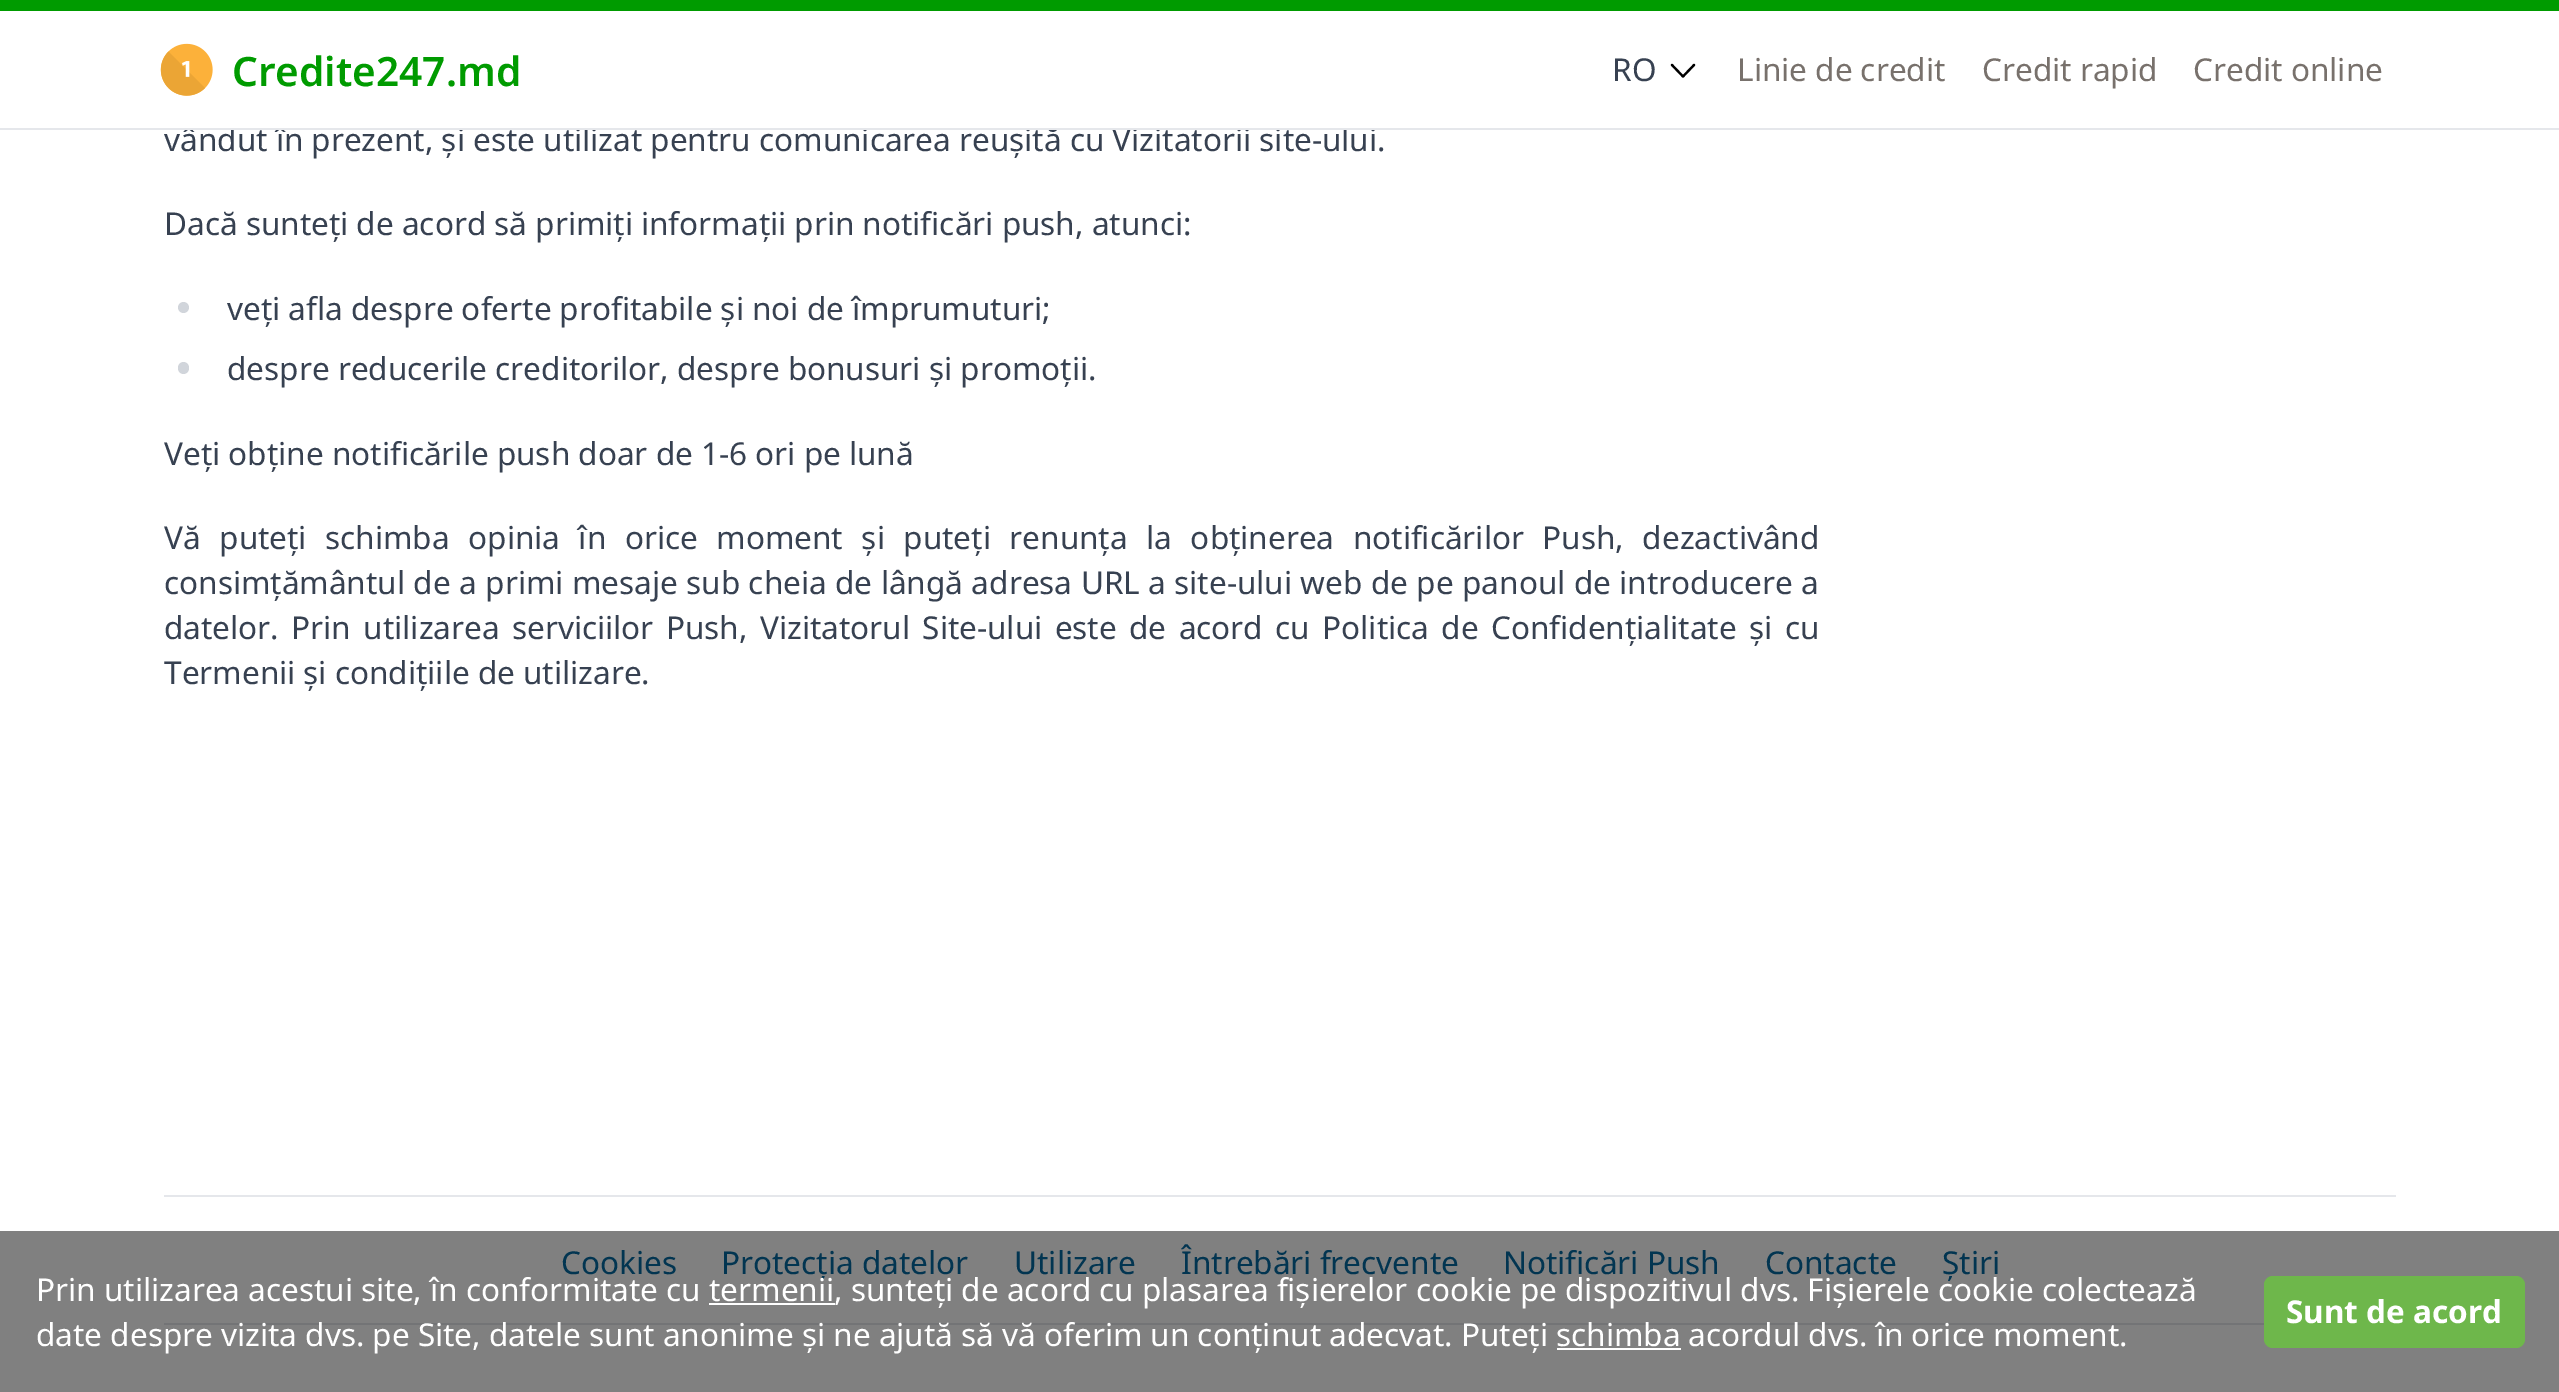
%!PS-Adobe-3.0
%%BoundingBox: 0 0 2559 1392
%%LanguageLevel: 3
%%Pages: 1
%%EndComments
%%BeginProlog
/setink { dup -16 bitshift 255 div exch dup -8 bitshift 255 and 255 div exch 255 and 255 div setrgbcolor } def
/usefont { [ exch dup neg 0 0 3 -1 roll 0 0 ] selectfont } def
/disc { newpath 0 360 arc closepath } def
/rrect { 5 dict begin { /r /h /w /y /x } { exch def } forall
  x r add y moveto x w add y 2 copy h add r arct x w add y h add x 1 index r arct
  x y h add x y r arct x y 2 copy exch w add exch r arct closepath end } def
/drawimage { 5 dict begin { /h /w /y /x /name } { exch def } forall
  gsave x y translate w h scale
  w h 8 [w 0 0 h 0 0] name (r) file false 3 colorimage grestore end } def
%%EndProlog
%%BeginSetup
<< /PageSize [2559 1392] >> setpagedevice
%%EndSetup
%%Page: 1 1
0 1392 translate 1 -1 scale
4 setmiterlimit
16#FFFFFF setink
0 0 2559 1392 rectfill
16#808080 setink
0 1231 2559 161 rectfill
/NotoSans-Regular 31.5 usefont
16#374151 setink
164 151 moveto (vândut în prezent, și este utilizat pentru comunicarea reușită cu Vizitatorii site-ului.) show
[
    [186 126 1188 2 16#FFFFFF]
    [0 128 2559 2 16#E5E7EB]
    [0 0 2559 11 16#009B00]
] { aload pop setink rectfill } forall
(img1.raw) 160 43 53 53 drawimage
/NotoSans-SemiBold 40.5 usefont
232 86 moveto (Credite247.md) show
/NotoSans-Regular 31.5 usefont
16#374151 setink
1612 81 moveto (RO) show
16#000000 setink
2.2 setlinewidth
1 setlinecap
1 setlinejoin
1694 65 moveto 1683 76.5 lineto 1672 65 lineto stroke
16#78716C setink
[
    [(Linie de credit) 1737 81]
    [(Credit rapid) 1982 81]
    [(Credit online) 2193 81]
] { aload pop moveto show } forall
16#374151 setink
164 235 moveto (Dacă sunteți de acord să primiți informații prin notificări push, atunci:) show
16#D1D5DB setink
183.5 307.5 5.5 disc fill
16#374151 setink
227 320 moveto (veți afla despre oferte profitabile și noi de împrumuturi;) show
16#D1D5DB setink
178 362 11 12 5.5 rrect fill
16#374151 setink
227 380 moveto (despre reducerile creditorilor, despre bonusuri și promoții.) show
164 465 moveto (Veți obține notificările push doar de 1-6 ori pe lună) show
164 549 moveto 10.4 0 32 (Vă puteți schimba opinia în orice moment și puteți renunța la obținerea notificărilor Push, dezactivând) widthshow
164 594 moveto 0.3 0 32 (consimțământul de a primi mesaje sub cheia de lângă adresa URL a site-ului web de pe panoul de introducere a) widthshow
164 639 moveto 4.25 0 32 (datelor. Prin utilizarea serviciilor Push, Vizitatorul Site-ului este de acord cu Politica de Confidențialitate și cu) widthshow
164 684 moveto (Termenii și condițiile de utilizare.) show
16#E5E7EB setink
164 1195 2232 2 rectfill
16#737476 setink
164 1323 2100 2 rectfill
16#023551 setink
[
    [(Cookies) 561 1274]
    [(Protecția datelor) 721 1274]
    [(Utilizare) 1014 1274]
    [(Întrebări frecvente) 1181 1274]
    [(Notificări Push) 1503 1274]
    [(Contacte) 1765 1274]
    [(Știri) 1942 1274]
] { aload pop moveto show } forall
16#FFFFFF setink
36 1301 moveto (Prin utilizarea acestui site, în conformitate cu termenii, sunteți de acord cu plasarea fișierelor cookie pe dispozitivul dvs. Fișierele cookie colectează) show
709 1303 126 2 rectfill
36 1346 moveto (date despre vizita dvs. pe Site, datele sunt anonime și ne ajută să vă oferim un conținut adecvat. Puteți schimba acordul dvs. în orice moment.) show
1557 1348 124 2 rectfill
16#6EB74B setink
2264 1276 261 72 9 rrect fill
/NotoSans-Bold 31.5 usefont
16#FFFFFF setink
2286 1323 moveto (Sunt de acord) show
showpage
%%EOF
